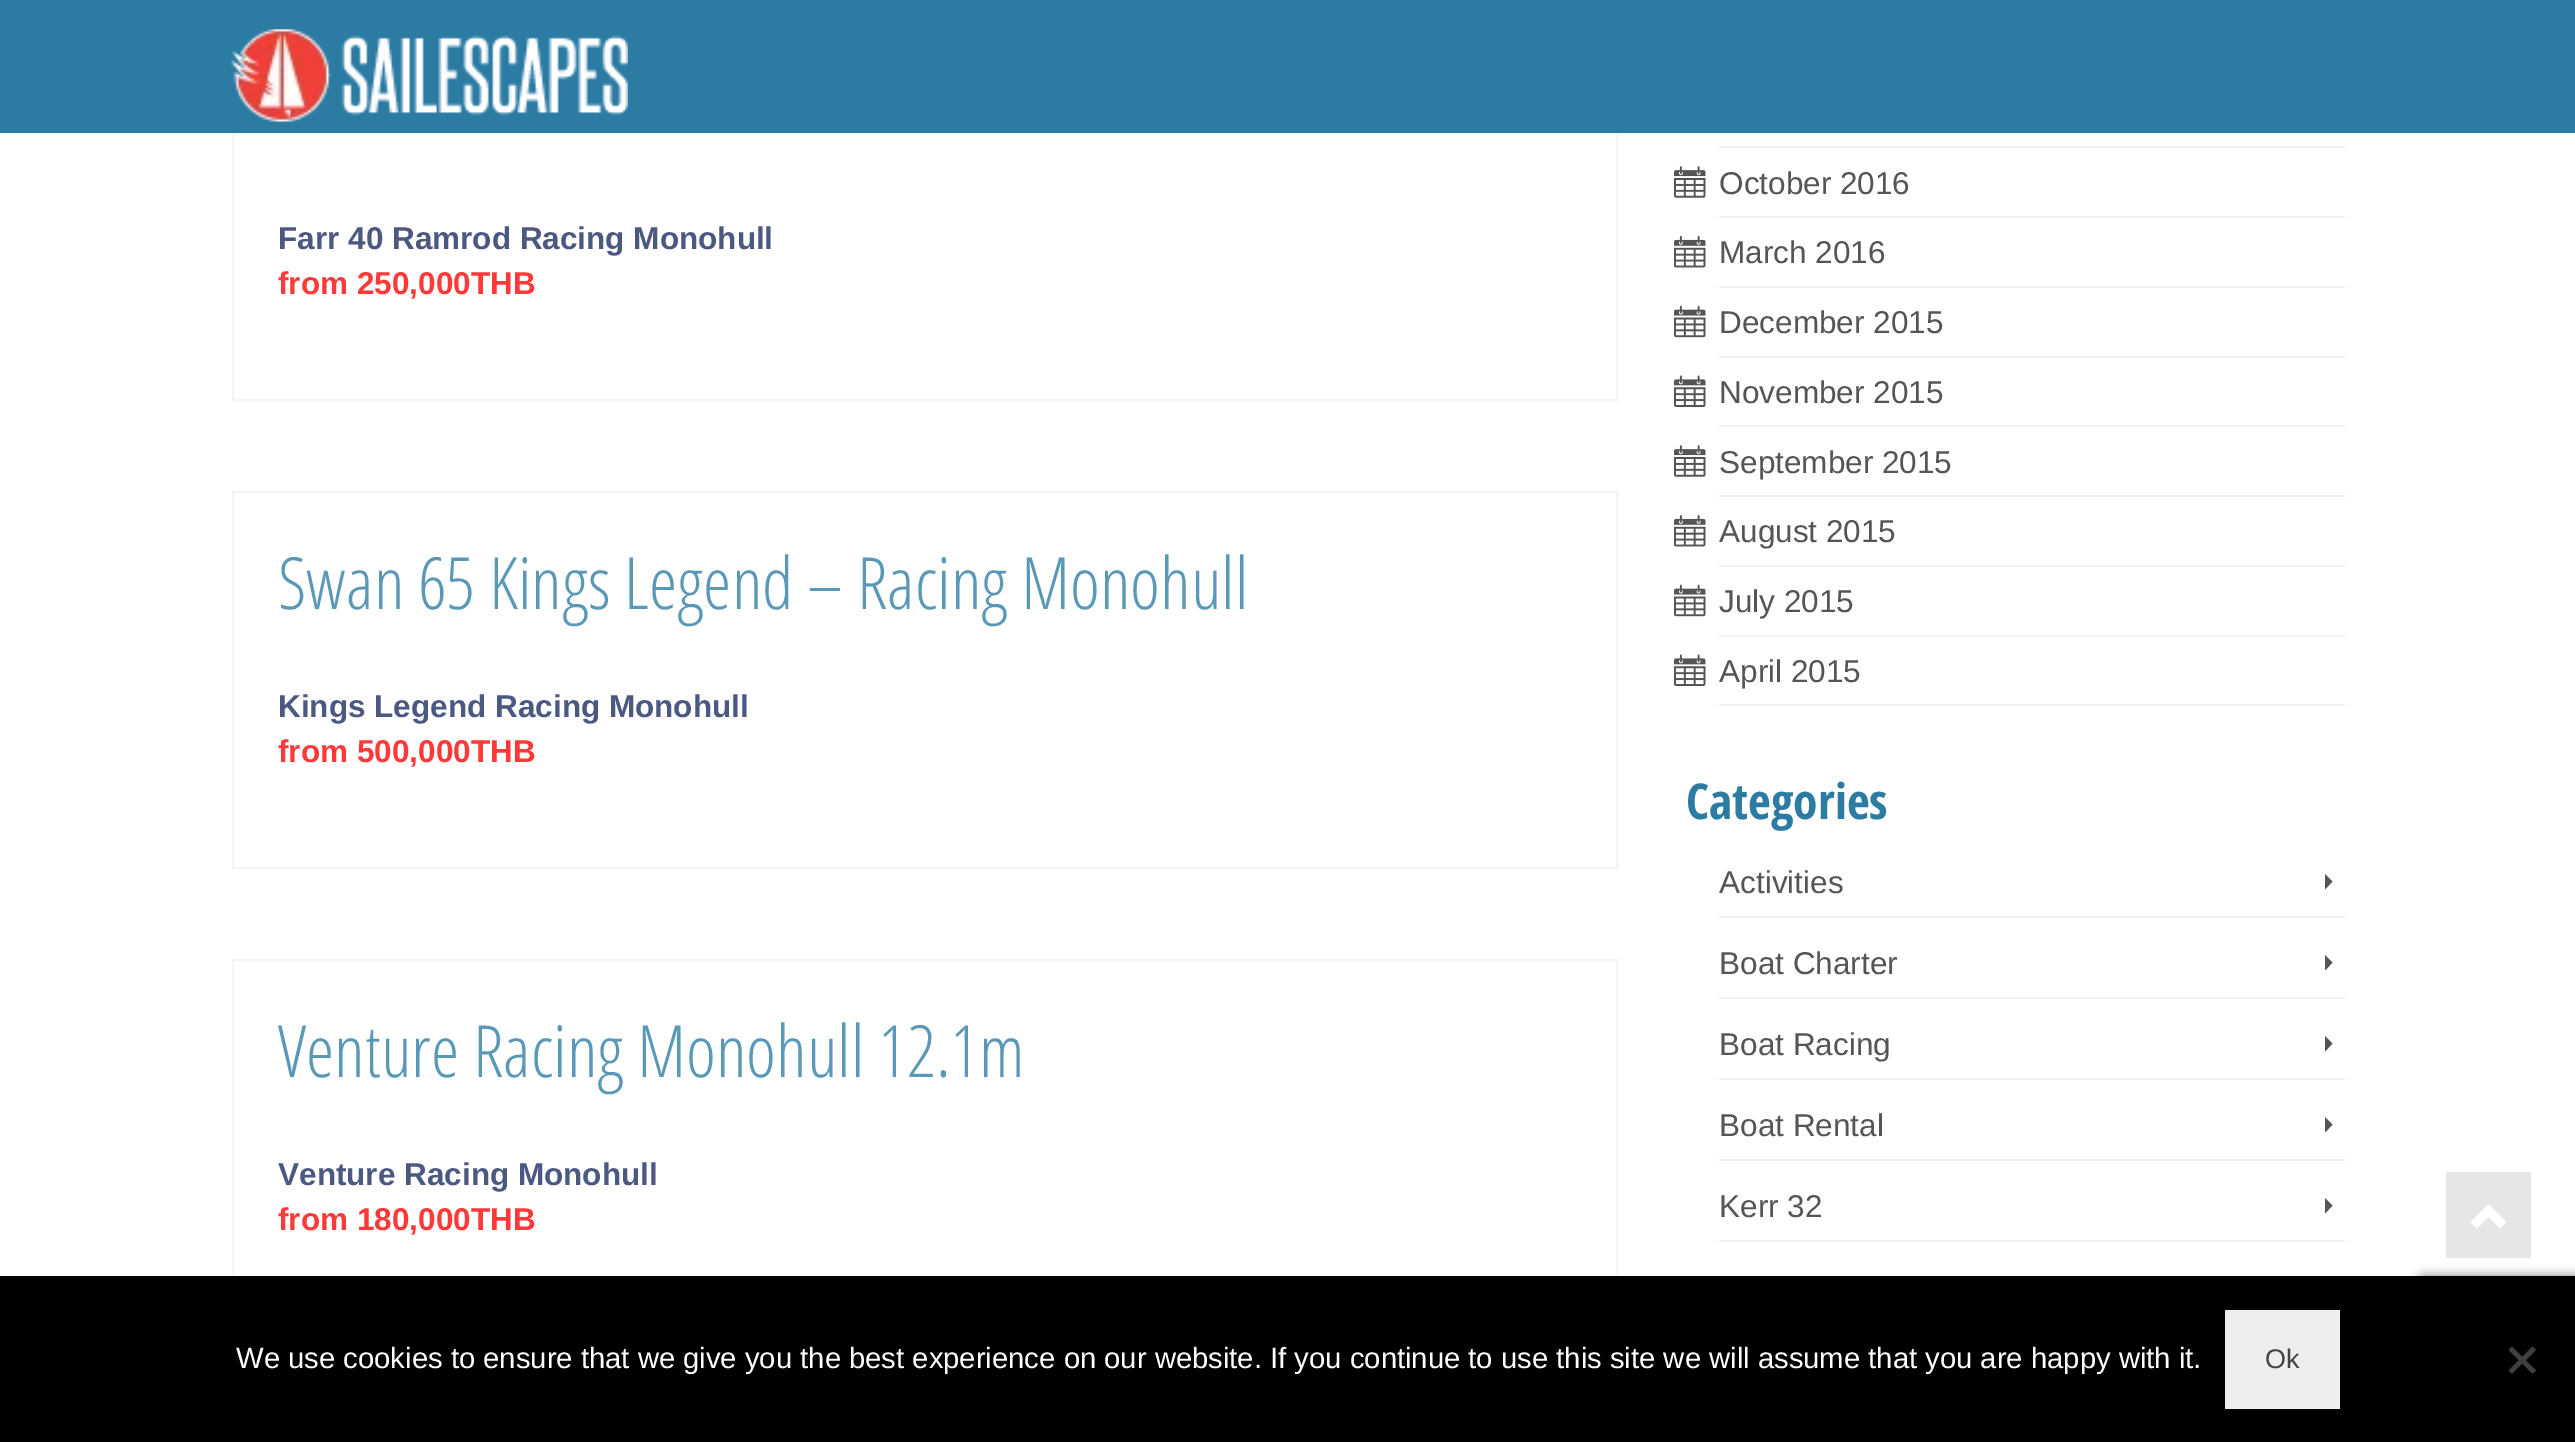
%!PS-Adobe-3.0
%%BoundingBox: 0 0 2575 1442
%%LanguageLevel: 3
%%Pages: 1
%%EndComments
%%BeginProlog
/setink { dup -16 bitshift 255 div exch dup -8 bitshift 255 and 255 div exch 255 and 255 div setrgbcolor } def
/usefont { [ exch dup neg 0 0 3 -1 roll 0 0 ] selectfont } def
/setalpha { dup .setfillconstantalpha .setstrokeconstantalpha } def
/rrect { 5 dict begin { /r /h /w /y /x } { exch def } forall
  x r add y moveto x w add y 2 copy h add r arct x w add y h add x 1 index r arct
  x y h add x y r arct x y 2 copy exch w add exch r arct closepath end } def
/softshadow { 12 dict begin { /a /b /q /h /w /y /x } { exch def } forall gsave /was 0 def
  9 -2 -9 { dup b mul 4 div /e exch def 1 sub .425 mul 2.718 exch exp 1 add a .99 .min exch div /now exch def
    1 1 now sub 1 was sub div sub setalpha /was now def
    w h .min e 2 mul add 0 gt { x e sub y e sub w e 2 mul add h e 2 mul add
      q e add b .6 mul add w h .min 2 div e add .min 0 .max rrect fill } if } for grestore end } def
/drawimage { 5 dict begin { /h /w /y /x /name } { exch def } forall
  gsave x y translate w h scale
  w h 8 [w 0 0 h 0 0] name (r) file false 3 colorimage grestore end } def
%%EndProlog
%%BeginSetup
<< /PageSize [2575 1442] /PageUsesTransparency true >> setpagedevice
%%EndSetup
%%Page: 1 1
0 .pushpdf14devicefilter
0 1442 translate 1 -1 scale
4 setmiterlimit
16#FFFFFF setink
0 0 2575 1442 rectfill
16#F5F5F5 setink
2 setlinewidth
233 24 1384 376 rectstroke
16#2B7BA3 setink
0 0 2575 133 rectfill
(img1.raw) 231 29 397 94 drawimage
/LiberationSans-Bold 31.5 usefont
16#4B5882 setink
278 249 moveto (Farr 40 Ramrod Racing Monohull) show
16#FF3838 setink
278 294 moveto (from 250,000THB) show
16#F5F5F5 setink
233 492 1384 376 rectstroke
/OpenSansCondensed-Light 72 usefont
16#5A98B7 setink
278 609 moveto (Swan 65 Kings Legend – Racing Monohull) show
/LiberationSans-Bold 31.5 usefont
16#4B5882 setink
278 717 moveto (Kings Legend Racing Monohull) show
16#FF3838 setink
278 762 moveto (from 500,000THB) show
16#F5F5F5 setink
233 960 1384 376 rectstroke
/OpenSansCondensed-Light 72 usefont
16#5A98B7 setink
278 1077 moveto (Venture Racing Monohull 12.1m) show
/LiberationSans-Bold 31.5 usefont
16#4B5882 setink
278 1185 moveto (Venture Racing Monohull) show
16#FF3838 setink
278 1230 moveto (from 180,000THB) show
16#F2F2F2 setink
1719 146 626 2 rectfill
1719 216 626 2 rectfill
(img2.raw) 1674 166 32 32 drawimage
/LiberationSans-Regular 31.5 usefont
16#555555 setink
1719 194 moveto (October 2016) show
16#F2F2F2 setink
1719 286 626 2 rectfill
(img3.raw) 1674 236 32 32 drawimage
16#555555 setink
1719 263 moveto (March 2016) show
16#F2F2F2 setink
1719 356 626 2 rectfill
(img4.raw) 1674 305 32 33 drawimage
16#555555 setink
1719 333 moveto (December 2015) show
16#F2F2F2 setink
1719 425 626 2 rectfill
(img5.raw) 1674 375 32 32 drawimage
16#555555 setink
1719 403 moveto (November 2015) show
16#F2F2F2 setink
1719 495 626 2 rectfill
(img2.raw) 1674 445 32 32 drawimage
16#555555 setink
1719 473 moveto (September 2015) show
16#F2F2F2 setink
1719 565 626 2 rectfill
(img3.raw) 1674 515 32 32 drawimage
16#555555 setink
1719 542 moveto (August 2015) show
16#F2F2F2 setink
1719 635 626 2 rectfill
(img4.raw) 1674 584 32 33 drawimage
16#555555 setink
1719 612 moveto (July 2015) show
16#F2F2F2 setink
1719 704 626 2 rectfill
(img5.raw) 1674 654 32 32 drawimage
16#555555 setink
1719 682 moveto (April 2015) show
/OpenSansCondensed-Bold 49.5 usefont
16#2B7BA3 setink
1686 819 moveto (Categories) show
16#F2F2F2 setink
1719 916 626 2 rectfill
/LiberationSans-Regular 31.5 usefont
16#555555 setink
1719 893 moveto (Activities) show
2325 889.5 moveto 2332.5 881.5 lineto 2325 874 lineto closepath fill
16#F2F2F2 setink
1719 997 626 2 rectfill
16#555555 setink
1719 974 moveto (Boat Charter) show
2325 970.5 moveto 2332.5 962.5 lineto 2325 955 lineto closepath fill
16#F2F2F2 setink
1719 1078 626 2 rectfill
16#555555 setink
1719 1055 moveto (Boat Racing) show
2325 1051.5 moveto 2332.5 1043.5 lineto 2325 1036 lineto closepath fill
16#F2F2F2 setink
1719 1159 626 2 rectfill
16#555555 setink
1719 1136 moveto (Boat Rental) show
2325 1132.5 moveto 2332.5 1124.5 lineto 2325 1117 lineto closepath fill
16#F2F2F2 setink
1719 1240 626 2 rectfill
16#555555 setink
1719 1217 moveto (Kerr 32) show
2325 1213.5 moveto 2332.5 1205.5 lineto 2325 1198 lineto closepath fill
16#E6E6E6 setink
2446 1172 85 86 rectfill
16#FFFFFF setink
2470.5 1222 moveto 2477 1228.5 lineto 2488.5 1217 lineto 2500 1228.5 lineto 2506.5 1222 lineto 2488.5 1204 lineto closepath fill
16#808080 setink
2419 1276 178 135 5 5.5 1 softshadow
16#000000 setink
0 1276 2575 166 rectfill
/LiberationSans-Regular 29.25 usefont
16#FFFFFF setink
236 1368 moveto (We use cookies to ensure that we give you the best experience on our website. If you continue to use this site we will assume that you are happy with it.) show
16#EEEEEE setink
2225 1310 115 99 rectfill
/LiberationSans-Regular 27 usefont
16#444444 setink
2265 1368 moveto (Ok) show
16#404040 setink
2532.5 1346.5 moveto 2536 1350 lineto 2512 1373.5 lineto 2508.5 1370.5 lineto closepath fill
2508.5 1350 moveto 2512 1346.5 lineto 2536 1370.5 lineto 2532.5 1373.5 lineto closepath fill
.poppdf14devicefilter showpage
%%EOF
